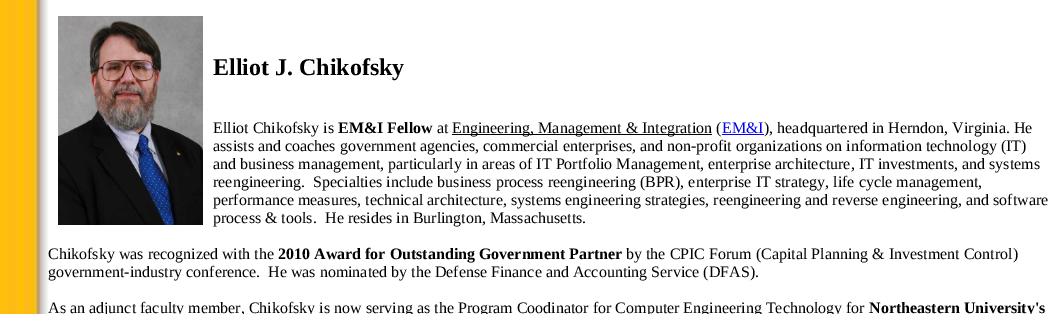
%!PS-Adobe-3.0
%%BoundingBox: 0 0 1058 314
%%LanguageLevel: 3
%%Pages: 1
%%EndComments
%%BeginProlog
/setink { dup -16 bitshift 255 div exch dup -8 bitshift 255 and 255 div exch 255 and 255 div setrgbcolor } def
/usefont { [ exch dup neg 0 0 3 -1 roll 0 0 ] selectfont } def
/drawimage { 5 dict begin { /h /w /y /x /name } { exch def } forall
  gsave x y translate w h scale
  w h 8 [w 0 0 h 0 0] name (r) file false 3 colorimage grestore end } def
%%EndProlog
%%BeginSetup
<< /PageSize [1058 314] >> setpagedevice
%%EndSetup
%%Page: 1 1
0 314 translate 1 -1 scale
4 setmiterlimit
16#FFFFFF setink
0 0 1058 314 rectfill
(img1.raw) 0 0 49 314 drawimage
(img2.raw) 58 16 145 209 drawimage
/LiberationSerif-Bold 24 usefont
16#000000 setink
213 75 moveto (Elliot J. Chikofsky) show
/LiberationSerif-Regular 16 usefont
213 133 moveto (Elliot Chikofsky is) show
/LiberationSerif-Bold 16 usefont
338 133 moveto (EM&I Fellow) show
/LiberationSerif-Regular 16 usefont
437 133 moveto (at) show
452 134 260 1 rectfill
452 133 moveto (Engineering, Management & Integration \() show
16#0000EE setink
722 133 moveto (EM&I) show
722 134 42 1 rectfill
16#000000 setink
[
    [(\), headquartered in Herndon, Virginia. He) 764 133]
    [(assists and coaches government agencies, commercial enterprises, and non-profit organizations on information technology \(IT\)) 213 151]
    [(and business management, particularly in areas of IT Portfolio Management, enterprise architecture, IT investments, and systems) 213 169]
    [(reengineering.  Specialties include business process reengineering \(BPR\), enterprise IT strategy, life cycle management,) 213 187]
    [(performance measures, technical architecture, systems engineering strategies, reengineering and reverse engineering, and software) 213 205]
    [(process & tools.) 213 223]
    [(He resides in Burlington, Massachusetts.) 325 223]
    [(Chikofsky was recognized with the) 48 259]
] { aload pop moveto show } forall
/LiberationSerif-Bold 16 usefont
278 259 moveto (2010 Award for Outstanding Government Partner) show
/LiberationSerif-Regular 16 usefont
[
    [(by the CPIC Forum \(Capital Planning & Investment Control\)) 626 259]
    [(government-industry conference.) 48 277]
    [(He was nominated by the Defense Finance and Accounting Service \(DFAS\).) 268 277]
    [(As an adjunct faculty member, Chikofsky is now serving as the Program Coodinator for Computer Engineering Technology for) 48 313]
] { aload pop moveto show } forall
/LiberationSerif-Bold 16 usefont
869 313 moveto (Northeastern University's) show
showpage
%%EOF
